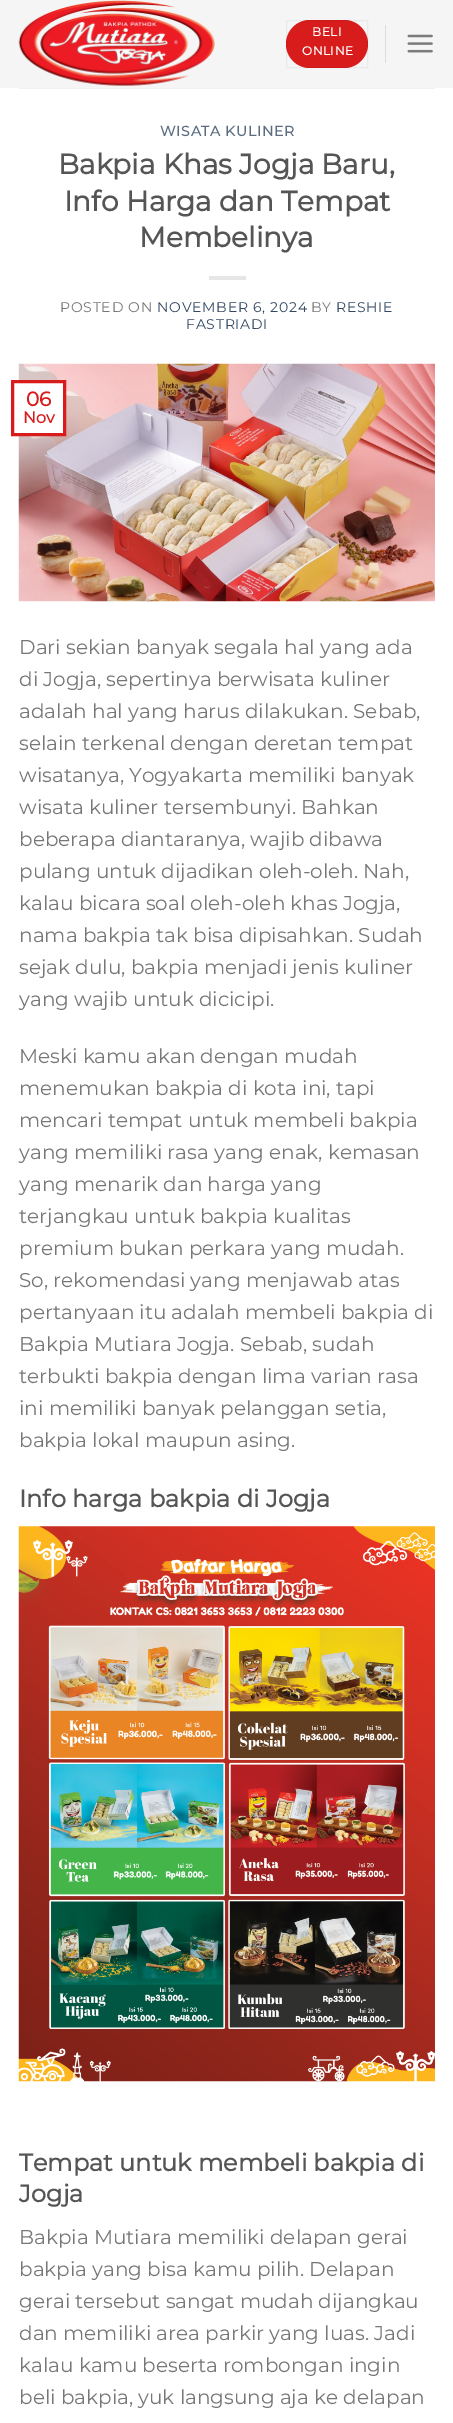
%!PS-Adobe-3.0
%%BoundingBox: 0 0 453 2423
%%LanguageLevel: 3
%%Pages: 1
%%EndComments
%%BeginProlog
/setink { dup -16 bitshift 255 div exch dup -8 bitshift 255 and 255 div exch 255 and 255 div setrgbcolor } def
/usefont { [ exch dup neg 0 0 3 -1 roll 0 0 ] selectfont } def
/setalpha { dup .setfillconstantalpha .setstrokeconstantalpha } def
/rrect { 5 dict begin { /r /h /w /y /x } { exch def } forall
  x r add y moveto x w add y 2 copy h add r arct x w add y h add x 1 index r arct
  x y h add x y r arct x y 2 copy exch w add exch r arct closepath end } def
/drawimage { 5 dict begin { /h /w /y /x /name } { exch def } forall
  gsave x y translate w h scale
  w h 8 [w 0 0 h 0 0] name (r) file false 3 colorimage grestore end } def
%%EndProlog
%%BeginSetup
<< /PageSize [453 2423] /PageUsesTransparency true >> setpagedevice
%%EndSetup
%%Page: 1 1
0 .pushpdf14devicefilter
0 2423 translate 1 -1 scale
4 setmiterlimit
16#FFFFFF setink
0 0 453 2423 rectfill
16#F5F5F5 setink
0 0 453 88 rectfill
(img1.raw) 18 0 197 86 drawimage
16#D81B1B setink
286 20 82 48 24 rrect fill
0.05 setalpha
16#000000 setink
286.5 20.5 81 47 rectstroke
/Montserrat-Bold 12 usefont
1 setalpha
16#FFFFFF setink
312 36 moveto 0.5 0 (BELI) ashow
302 55 moveto 0.5 0 (ONLINE) ashow
16#DDDDDD setink
385 25 1 38 rectfill
(img2.raw) 407 34 26 19 drawimage
16#F1F1F1 setink
19 88 416 1 rectfill
/Montserrat-Bold 14 usefont
16#5C6D81 setink
160 136 moveto 0.75 0 (WISATA KULINER) ashow
/Montserrat-Bold 28 usefont
16#555555 setink
[
    [(Bakpia Khas Jogja Baru,) 58 174]
    [(Info Harga dan Tempat) 64 211]
    [(Membelinya) 139 247]
] { aload pop moveto show } forall
16#E6E6E6 setink
209 276 37 4 rectfill
/Montserrat-Regular 14 usefont
16#777777 setink
60 312 moveto 0.75 0 (POSTED ON) ashow
16#334862 setink
157 312 moveto 0.75 0 (NOVEMBER 6, 2024) ashow
16#777777 setink
311 312 moveto 0.75 0 (BY) ashow
16#334862 setink
336 312 moveto 0.75 0 (RESHIE) ashow
186 329 moveto 0.75 0 (FASTRIADI) ashow
(img3.raw) 18 363 417 239 drawimage
16#FFFFFF setink
18 383 45 50 rectfill
16#D81B1B setink
3 setlinewidth
12.5 381.5 52 53 rectstroke
/Montserrat-Bold 20 usefont
26 406 moveto (06) show
/Montserrat-Bold 16 usefont
23 423 moveto (Nov) show
/Montserrat-Regular 20 usefont
16#777777 setink
[
    [(Dari sekian banyak segala hal yang ada) 19 654]
    [(di Jogja, sepertinya berwisata kuliner) 19 686]
    [(adalah hal yang harus dilakukan. Sebab,) 19 718]
    [(selain terkenal dengan deretan tempat) 19 750]
    [(wisatanya, Yogyakarta memiliki banyak) 19 782]
    [(wisata kuliner tersembunyi. Bahkan) 19 814]
    [(beberapa diantaranya, wajib dibawa) 19 846]
    [(pulang untuk dijadikan oleh-oleh. Nah,) 19 878]
    [(kalau bicara soal oleh-oleh khas Jogja,) 19 910]
    [(nama bakpia tak bisa dipisahkan. Sudah) 19 942]
    [(sejak dulu, bakpia menjadi jenis kuliner) 19 974]
    [(yang wajib untuk dicicipi.) 19 1006]
    [(Meski kamu akan dengan mudah) 19 1063]
    [(menemukan bakpia di kota ini, tapi) 19 1095]
    [(mencari tempat untuk membeli bakpia) 19 1127]
    [(yang memiliki rasa yang enak, kemasan) 19 1159]
    [(yang menarik dan harga yang) 19 1191]
    [(terjangkau untuk bakpia kualitas) 19 1223]
    [(premium bukan perkara yang mudah.) 19 1255]
    [(So, rekomendasi yang menjawab atas) 19 1287]
    [(pertanyaan itu adalah membeli bakpia di) 19 1319]
    [(Bakpia Mutiara Jogja. Sebab, sudah) 19 1351]
    [(terbukti bakpia dengan lima varian rasa) 19 1383]
    [(ini memiliki banyak pelanggan setia,) 19 1415]
    [(bakpia lokal maupun asing.) 19 1447]
] { aload pop moveto show } forall
/Montserrat-Bold 24 usefont
16#555555 setink
19 1507 moveto (Info harga bakpia di Jogja) show
(img4.raw) 18 1526 417 556 drawimage
19 2171 moveto (Tempat untuk membeli bakpia di) show
19 2202 moveto (Jogja) show
/Montserrat-Regular 20 usefont
16#777777 setink
[
    [(Bakpia Mutiara memiliki delapan gerai) 19 2244]
    [(bakpia yang bisa kamu pilih. Delapan) 19 2276]
    [(gerai tersebut sangat mudah dijangkau) 19 2308]
    [(dan memiliki area parkir yang luas. Jadi) 19 2340]
    [(kalau kamu beserta rombongan ingin) 19 2372]
    [(beli bakpia, yuk langsung aja ke delapan) 19 2404]
] { aload pop moveto show } forall
.poppdf14devicefilter showpage
%%EOF
